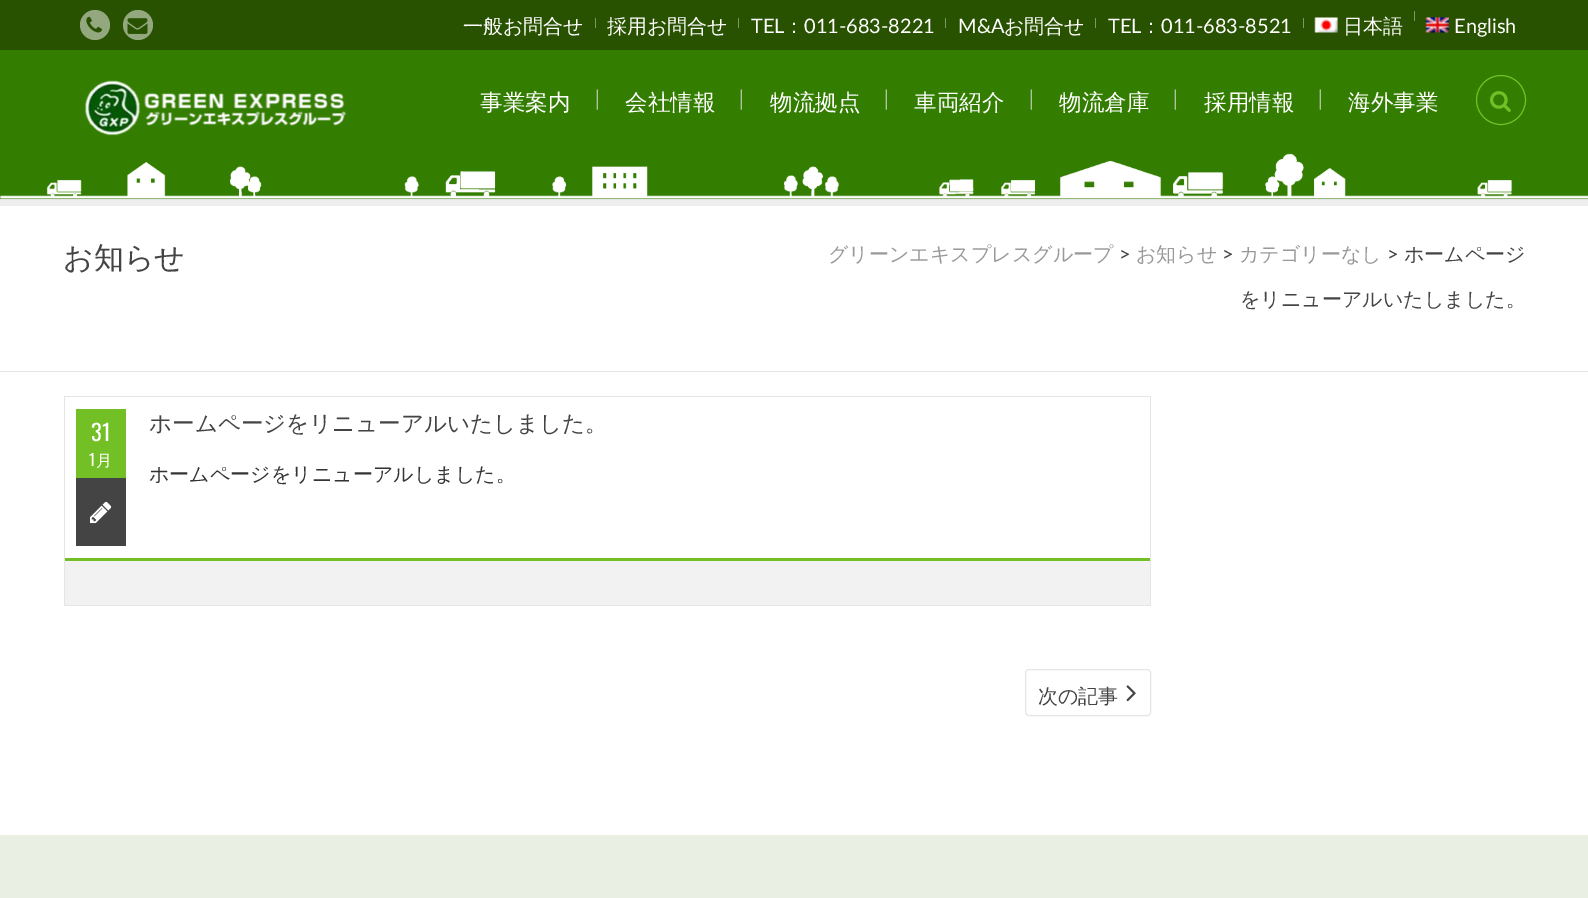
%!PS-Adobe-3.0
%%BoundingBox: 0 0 1588 898
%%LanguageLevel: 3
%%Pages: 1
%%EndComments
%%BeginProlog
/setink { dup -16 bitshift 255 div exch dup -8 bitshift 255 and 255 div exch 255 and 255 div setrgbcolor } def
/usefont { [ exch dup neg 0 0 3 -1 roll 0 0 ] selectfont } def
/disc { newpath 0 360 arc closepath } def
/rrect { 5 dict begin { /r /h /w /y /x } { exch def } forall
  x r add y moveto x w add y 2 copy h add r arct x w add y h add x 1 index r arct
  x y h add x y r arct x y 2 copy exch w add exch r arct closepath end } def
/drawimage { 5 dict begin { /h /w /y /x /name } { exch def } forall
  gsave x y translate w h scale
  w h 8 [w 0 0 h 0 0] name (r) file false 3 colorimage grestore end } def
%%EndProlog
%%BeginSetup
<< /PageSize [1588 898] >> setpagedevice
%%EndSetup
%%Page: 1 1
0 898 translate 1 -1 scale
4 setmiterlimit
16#FFFFFF setink
0 0 1588 898 rectfill
16#285100 setink
0 0 1588 50 rectfill
16#94A880 setink
95 25 15 disc fill
(img1.raw) 86 16 16 17 drawimage
138 25 15 disc fill
(img2.raw) 127 18 21 16 drawimage
/WenQuanYiZenHei-Medium 20 usefont
16#FFFFFF setink
463 33 moveto (一般お問合せ) show
16#7E9766 setink
595 18 1 10 rectfill
16#FFFFFF setink
607 33 moveto (採用お問合せ) show
16#7E9766 setink
738 18 1 10 rectfill
/Lato-Regular 20 usefont
16#FFFFFF setink
751 33 moveto (TEL) show
/WenQuanYiZenHei-Medium 20 usefont
784 33 moveto (：) show
/Lato-Regular 20 usefont
804 33 moveto (011-683-8221) show
16#7E9766 setink
945 18 1 10 rectfill
16#FFFFFF setink
958 33 moveto (M&A) show
/WenQuanYiZenHei-Medium 20 usefont
1004 33 moveto (お問合せ) show
16#7E9766 setink
1095 18 1 10 rectfill
/Lato-Regular 20 usefont
16#FFFFFF setink
1108 33 moveto (TEL) show
/WenQuanYiZenHei-Medium 20 usefont
1141 33 moveto (：) show
/Lato-Regular 20 usefont
1161 33 moveto (011-683-8521) show
16#7E9766 setink
1303 18 1 10 rectfill
(img3.raw) 1314 17 24 16 drawimage
/WenQuanYiZenHei-Medium 20 usefont
16#FFFFFF setink
1343 33 moveto (日本語) show
16#7E9766 setink
1414 11 1 10 rectfill
(img4.raw) 1425 17 24 16 drawimage
/Lato-Regular 20 usefont
16#FFFFFF setink
1454 33 moveto (English) show
16#337E00 setink
0 50 1588 149 rectfill
(img5.raw) 0 153 1588 46 drawimage
16#E5E5E5 setink
0 199 1588 1 rectfill
(img6.raw) 84 80 263 56 drawimage
/WenQuanYiZenHei-Medium 22.5 usefont
16#FFFFFF setink
480 110 moveto (事業案内) show
/LiberationSerif-Regular 22.5 usefont
16#DDDDDD setink
595 105 moveto (|) show
/WenQuanYiZenHei-Medium 22.5 usefont
16#FFFFFF setink
625 110 moveto (会社情報) show
/LiberationSerif-Regular 22.5 usefont
16#DDDDDD setink
739 105 moveto (|) show
/WenQuanYiZenHei-Medium 22.5 usefont
16#FFFFFF setink
770 110 moveto (物流拠点) show
/LiberationSerif-Regular 22.5 usefont
16#DDDDDD setink
884 105 moveto (|) show
/WenQuanYiZenHei-Medium 22.5 usefont
16#FFFFFF setink
914 110 moveto (車両紹介) show
/LiberationSerif-Regular 22.5 usefont
16#DDDDDD setink
1029 105 moveto (|) show
/WenQuanYiZenHei-Medium 22.5 usefont
16#FFFFFF setink
1059 110 moveto (物流倉庫) show
/LiberationSerif-Regular 22.5 usefont
16#DDDDDD setink
1173 105 moveto (|) show
/WenQuanYiZenHei-Medium 22.5 usefont
16#FFFFFF setink
1204 110 moveto (採用情報) show
/LiberationSerif-Regular 22.5 usefont
16#DDDDDD setink
1318 105 moveto (|) show
/WenQuanYiZenHei-Medium 22.5 usefont
16#FFFFFF setink
1348 110 moveto (海外事業) show
16#73C026 setink
1501 100 24.5 disc stroke
(img7.raw) 1490 91 21 21 drawimage
16#EEEEEE setink
0 200 1588 6 rectfill
16#E5E5E5 setink
0 371 1588 1 rectfill
/WenQuanYiZenHei-Medium 30 usefont
16#444444 setink
63 268 moveto (お知らせ) show
/WenQuanYiZenHei-Medium 20 usefont
16#999999 setink
828 261 moveto (グリーンエキスプレスグループ) show
/Lato-Regular 20 usefont
16#444444 setink
1119 261 moveto (>) show
/WenQuanYiZenHei-Medium 20 usefont
16#999999 setink
1136 261 moveto (お知らせ) show
/Lato-Regular 20 usefont
16#444444 setink
1222 261 moveto (>) show
/WenQuanYiZenHei-Medium 20 usefont
16#999999 setink
1239 261 moveto (カテゴリーなし) show
/Lato-Regular 20 usefont
16#444444 setink
1387 261 moveto (>) show
/WenQuanYiZenHei-Medium 20 usefont
1404 261 moveto (ホームページ) show
1240 306 moveto (をリニューアルいたしました。) show
[
    [1150 396 1 210 16#E5E5E5]
    [64 605 1087 1 16#E5E5E5]
    [64 396 1 210 16#E5E5E5]
    [65 396 1085 1 16#E5E5E5]
    [76 409 50 69 16#73C026]
] { aload pop setink rectfill } forall
/Oswald-Regular 22.5 usefont
16#FFFFFF setink
91 441 moveto (31) show
/Oswald-Regular 16 usefont
89 466 moveto (1) show
/WenQuanYiZenHei-Medium 16 usefont
96 466 moveto (月) show
16#444444 setink
76 478 50 68 rectfill
(img8.raw) 90 501 22 23 drawimage
/WenQuanYiZenHei-Medium 22.5 usefont
149 431 moveto (ホームページをリニューアルいたしました。) show
/WenQuanYiZenHei-Medium 20 usefont
16#343434 setink
149 481 moveto (ホームページをリニューアルしました。) show
16#F2F2F2 setink
65 561 1085 44 rectfill
16#73C026 setink
65 558 1085 3 rectfill
16#E5E5E5 setink
1025.5 669.5 125 46 3.5 rrect stroke
16#444444 setink
1038 703 moveto (次の記事) show
(img9.raw) 1126 685 10 17 drawimage
16#EAEFE4 setink
0 835 1588 63 rectfill
showpage
%%EOF
